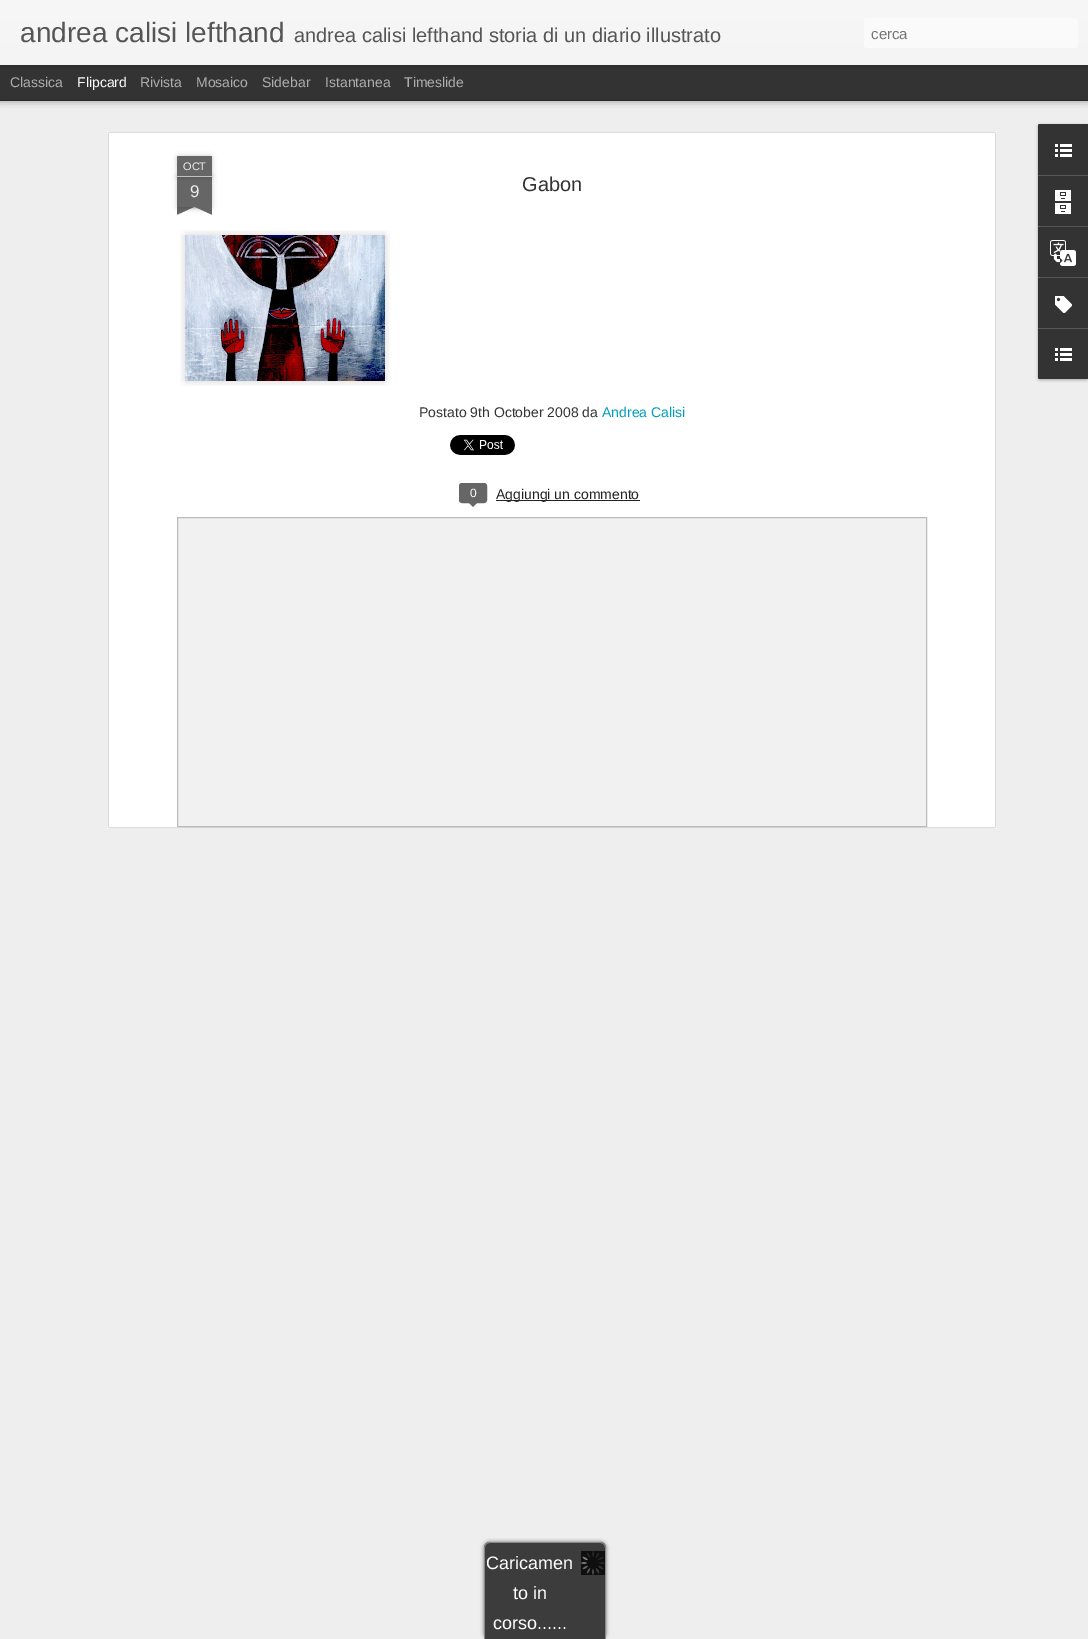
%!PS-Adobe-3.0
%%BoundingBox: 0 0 1088 1639
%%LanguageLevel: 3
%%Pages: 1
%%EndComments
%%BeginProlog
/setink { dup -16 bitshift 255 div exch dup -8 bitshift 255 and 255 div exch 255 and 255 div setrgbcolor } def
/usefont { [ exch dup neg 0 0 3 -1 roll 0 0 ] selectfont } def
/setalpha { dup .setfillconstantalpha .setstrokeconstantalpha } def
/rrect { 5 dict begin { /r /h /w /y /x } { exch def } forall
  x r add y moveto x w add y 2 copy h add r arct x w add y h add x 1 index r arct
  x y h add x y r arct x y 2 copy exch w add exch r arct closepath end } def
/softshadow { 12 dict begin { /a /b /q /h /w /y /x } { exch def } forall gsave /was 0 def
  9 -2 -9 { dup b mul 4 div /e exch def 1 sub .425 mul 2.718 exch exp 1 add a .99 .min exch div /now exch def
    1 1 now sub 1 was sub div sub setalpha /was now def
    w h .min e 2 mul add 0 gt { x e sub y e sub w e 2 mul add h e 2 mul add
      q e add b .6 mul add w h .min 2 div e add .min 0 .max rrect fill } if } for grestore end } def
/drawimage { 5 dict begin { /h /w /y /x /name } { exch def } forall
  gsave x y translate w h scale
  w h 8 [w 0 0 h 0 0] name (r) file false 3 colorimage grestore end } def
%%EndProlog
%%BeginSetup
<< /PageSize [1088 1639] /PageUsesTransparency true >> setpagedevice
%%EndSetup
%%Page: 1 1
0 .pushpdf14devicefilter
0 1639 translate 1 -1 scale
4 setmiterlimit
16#333333 setink
0 0 1088 1639 rectfill
16#EEEEEE setink
0 101 1088 1538 rectfill
16#000000 setink
0 65 1088 35 0 4 0.5 softshadow
16#333333 setink
0 65 1088 35 rectfill
16#000000 setink
0 0 1088 65 0 2.5 0.3 softshadow
gsave 0 0 moveto 1088 0 lineto 1088 65 lineto 0 65 lineto closepath clip newpath
<< /ShadingType 2 /ColorSpace /DeviceRGB /Coords [0 0 0 65] /Extend [true true] /Function << /FunctionType 2 /Domain [0 1] /C0 [0.969 0.969 0.969] /C1 [0.957 0.957 0.957] /N 1 >> >> shfill grestore
/LiberationSans-Regular 28 usefont
16#555555 setink
20 42 moveto (andrea calisi lefthand) show
/LiberationSans-Regular 20 usefont
294 42 moveto (andrea calisi lefthand storia di un diario illustrato) show
16#FAFAFA setink
864 18 214 30 3 rrect fill
/LiberationSans-Regular 15 usefont
16#757575 setink
871 39 moveto (cerca) show
/LiberationSans-Regular 14 usefont
16#ADADAD setink
10 87 moveto (Classica) show
16#FFFFFF setink
77 87 moveto (Flipcard) show
16#ADADAD setink
[
    [(Rivista) 140 87]
    [(Mosaico) 196 87]
    [(Sidebar) 262 87]
    [(Istantanea) 325 87]
    [(Timeslide) 404 87]
] { aload pop moveto show } forall
16#FFFFFF setink
107 131 890 698 rectfill
(img1.raw) 107 131 890 698 drawimage
16#000000 setink
177 177 35 30 0 2.5 0.2 softshadow
16#666666 setink
177 177 35 30 rectfill
16#000000 setink
177 156 35 21 1 2.5 0.2 softshadow
16#666666 setink
178 156 moveto 211 156 lineto 211.5 156 212 156.5 212 157 curveto 212 177 lineto 177 177 lineto 177 157 lineto 177 156.5 177.5 156 178 156 curveto closepath fill
16#C2C2C2 setink
177 176 35 1 rectfill
/LiberationSans-Regular 11 usefont
16#EEEEEE setink
183 170 moveto (OCT) show
/LiberationSans-Regular 17 usefont
190 197 moveto (9) show
gsave
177 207 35 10 rectclip
16#000000 setink
168 197 50 10 0 2.5 0.2 softshadow
grestore
gsave
177 207 35 10 rectclip
16#666666 setink
168 208 moveto 214 187 lineto 218 196 lineto 172 217 lineto closepath fill
grestore
gsave
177 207 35 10 rectclip
16#000000 setink
171 197 50 10 0 2.5 0.2 softshadow
grestore
gsave
177 207 35 10 rectclip
16#666666 setink
175 187 moveto 221 208 lineto 217 217 lineto 171 196 lineto closepath fill
grestore
/LiberationSans-Regular 20 usefont
16#333333 setink
522 191 moveto (Gabon) show
(img2.raw) 180 230 210 156 drawimage
/LiberationSans-Regular 14 usefont
419 417 moveto (Postato 9th October 2008 da) show
16#009EB8 setink
602 417 moveto (Andrea Calisi) show
(img3.raw) 450 435 65 20 drawimage
16#666666 setink
459.5 483.5 27 19 2.5 rrect gsave fill grestore
stroke
/LiberationSans-Regular 12 usefont
16#FFFFFF setink
470 497 moveto (0) show
16#666666 setink
468 502 moveto 478 502 lineto 473 507 lineto closepath fill
16#222222 setink
496 500 144 1 rectfill
/LiberationSans-Regular 14 usefont
496 499 moveto (Aggiungi un commento) show
16#F1F1F1 setink
177.5 517.5 moveto 926.5 517.5 lineto 926.5 826.5 lineto 177.5 826.5 lineto closepath gsave fill grestore
16#BBBBBB setink
stroke
16#000000 setink
1038 125 50 255 2 1.5 0.3 softshadow
16#333333 setink
1040 124 moveto 1088 124 lineto 1088 379 lineto 1040 379 lineto 1039 379 1038 378 1038 377 curveto 1038 126 lineto 1038 125 1039 124 1040 124 curveto closepath fill
1040 124 moveto 1088 124 lineto 1088 175 lineto 1038 175 lineto 1038 126 lineto 1038 125 1039 124 1040 124 curveto closepath fill
(img4.raw) 1055 144 17 13 drawimage
16#585858 setink
1038 175 50 1 rectfill
(img5.raw) 1055 190 16 24 drawimage
1038 226 50 1 rectfill
(img6.raw) 1050 240 26 26 drawimage
1038 277 50 1 rectfill
(img7.raw) 1055 296 17 17 drawimage
16#333333 setink
1038 328 moveto 1088 328 lineto 1088 379 lineto 1040 379 lineto 1039 379 1038 378 1038 377 curveto closepath fill
16#585858 setink
1038 328 50 1 rectfill
(img4.raw) 1055 348 17 13 drawimage
16#626262 setink
484 1542 122 97 6 2 1 softshadow
16#3C3C3C setink
490 1542 moveto 600 1542 lineto 603.5 1542 606 1544.5 606 1548 curveto 606 1639 lineto 484 1639 lineto 484 1548 lineto 484 1544.5 486.5 1542 490 1542 curveto closepath fill
16#888888 setink
490 1542 moveto 600 1542 lineto 603 1542 606 1545 606 1548 curveto 606 1639 lineto 484 1639 lineto 484 1548 lineto 484 1545 487 1542 490 1542 curveto closepath 490 1543 moveto 600 1543 lineto 603 1543 605 1545 605 1548 curveto 605 1639 lineto 485 1639 lineto 485 1548 lineto 485 1545 487 1543 490 1543 curveto closepath eofill
(img8.raw) 581 1551 24 24 drawimage
/LiberationSans-Regular 18 usefont
16#FFFFFF setink
[
    [(Caricamen) 486 1569]
    [(to in) 513 1599]
    [(corso......) 493 1629]
] { aload pop moveto show } forall
.poppdf14devicefilter showpage
%%EOF
